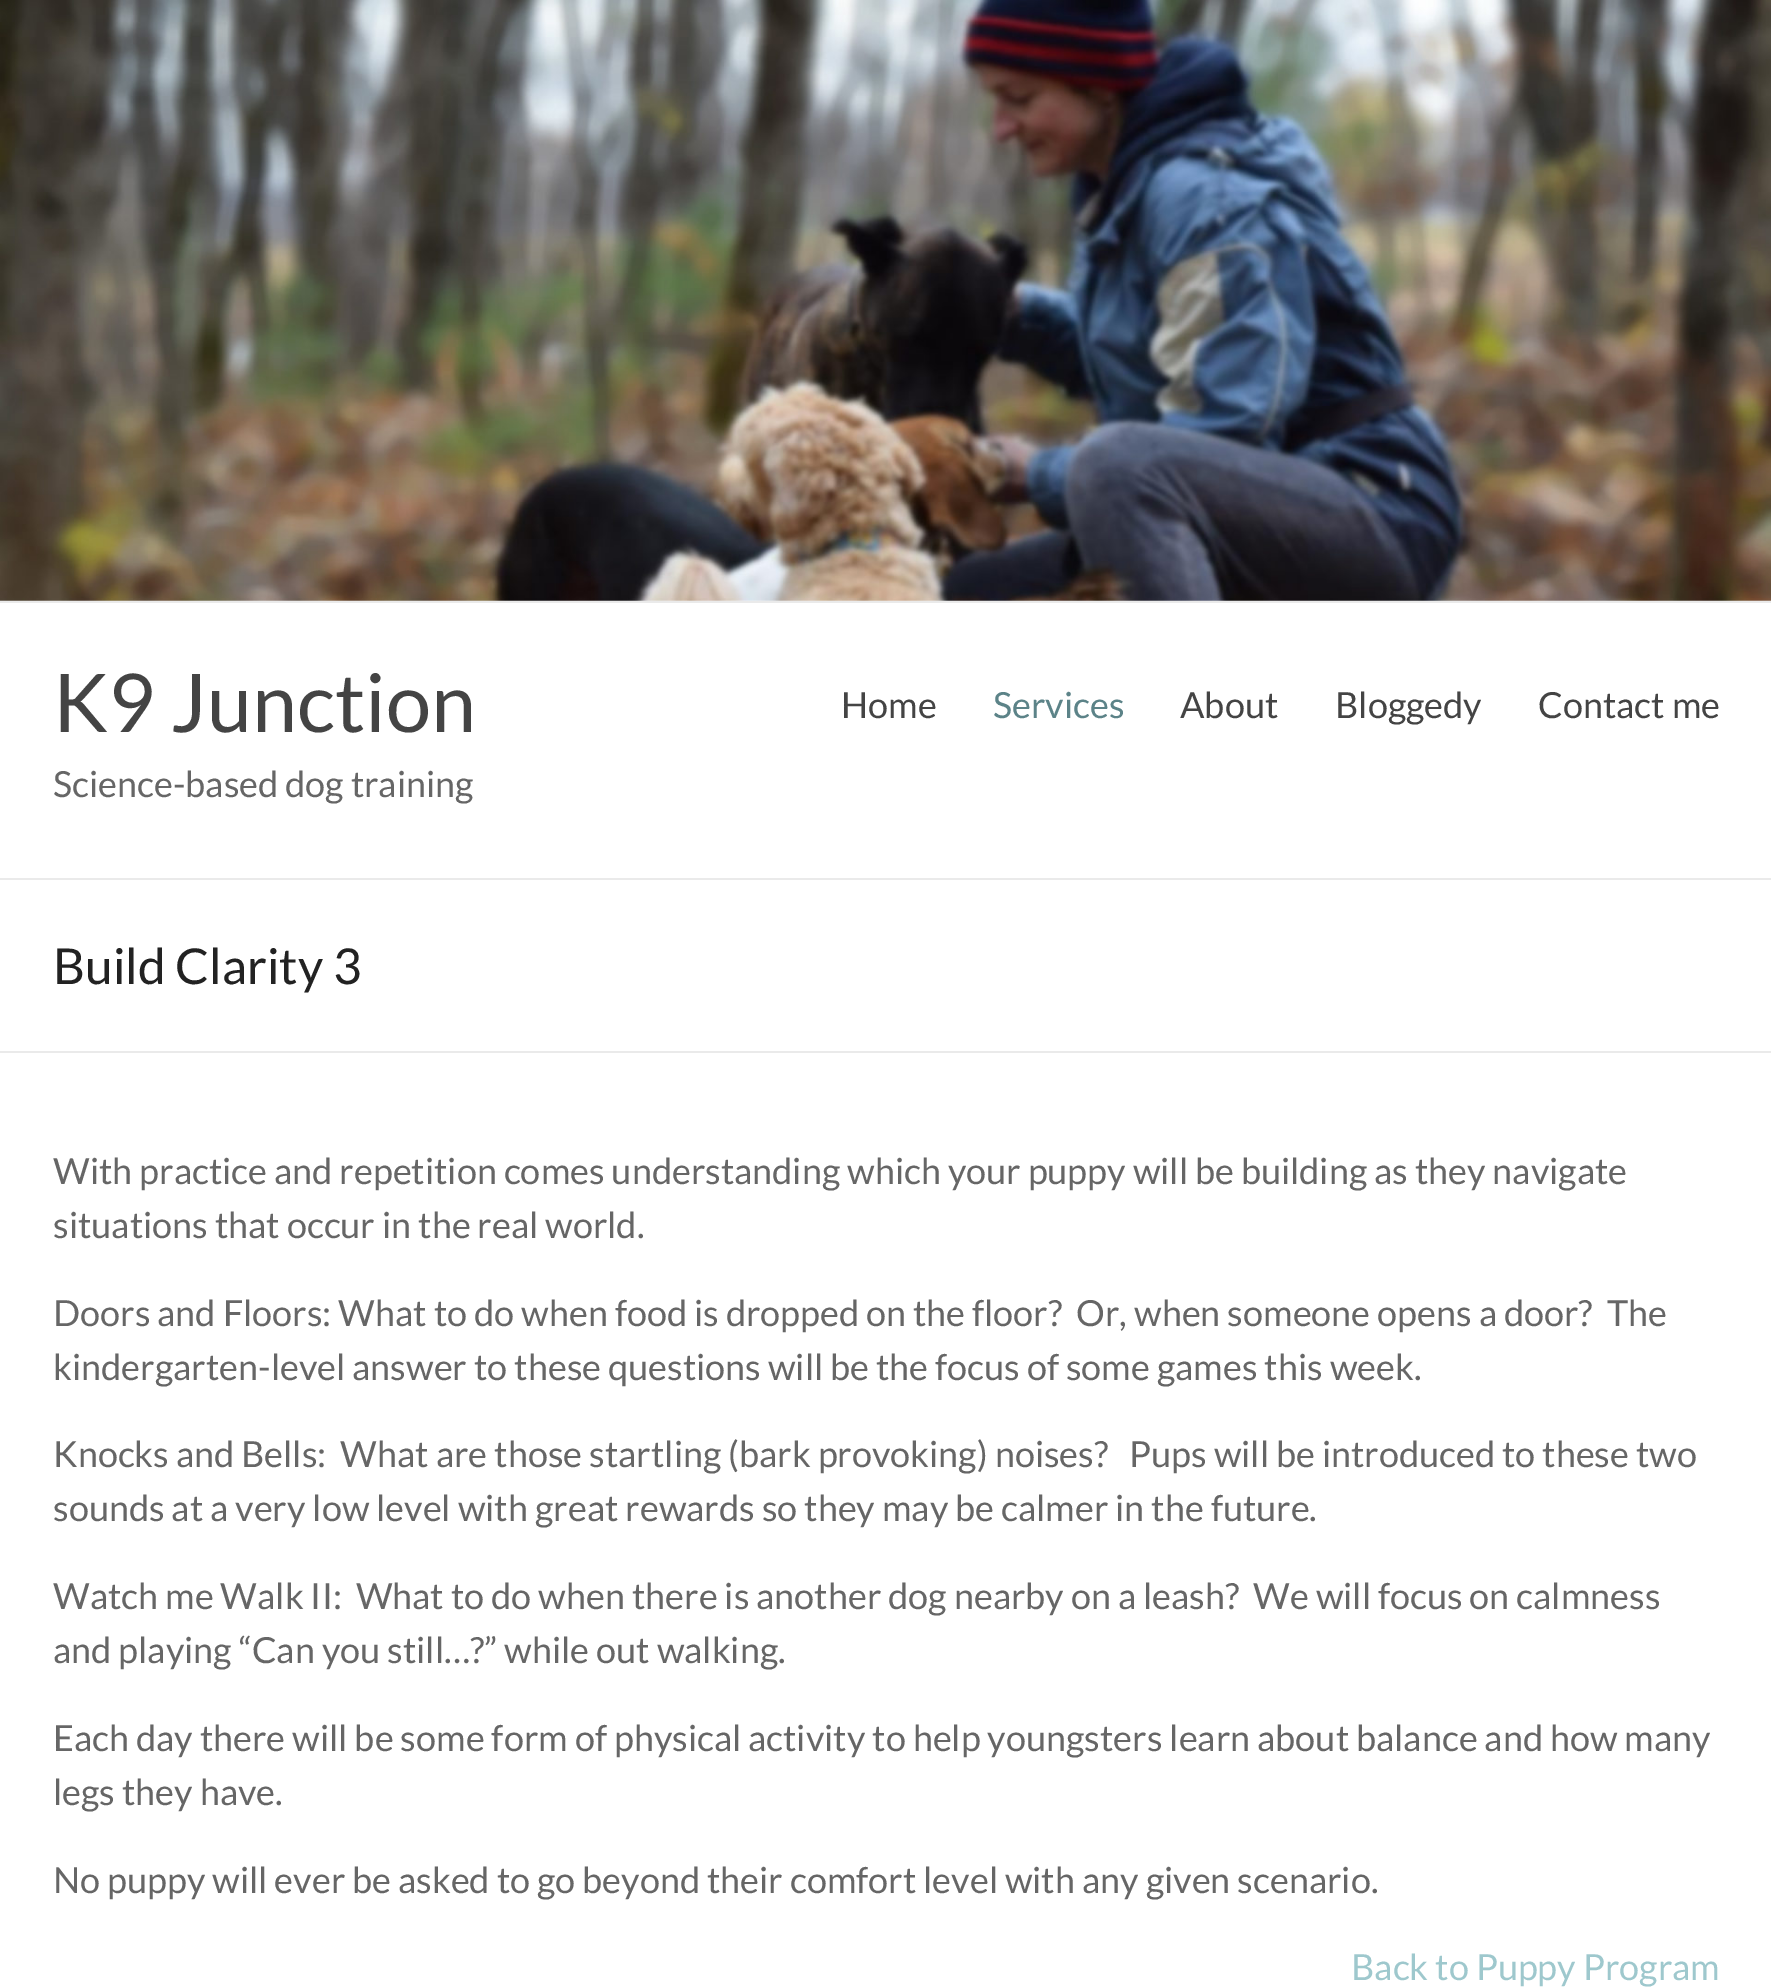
%!PS-Adobe-3.0
%%BoundingBox: 0 0 1771 1988
%%LanguageLevel: 3
%%Pages: 1
%%EndComments
%%BeginProlog
/setink { dup -16 bitshift 255 div exch dup -8 bitshift 255 and 255 div exch 255 and 255 div setrgbcolor } def
/usefont { [ exch dup neg 0 0 3 -1 roll 0 0 ] selectfont } def
/drawimage { 5 dict begin { /h /w /y /x /name } { exch def } forall
  gsave x y translate w h scale
  w h 8 [w 0 0 h 0 0] name (r) file false 3 colorimage grestore end } def
%%EndProlog
%%BeginSetup
<< /PageSize [1771 1988] >> setpagedevice
%%EndSetup
%%Page: 1 1
0 1988 translate 1 -1 scale
4 setmiterlimit
16#FFFFFF setink
0 0 1771 1988 rectfill
(img1.raw) 0 0 1771 601 drawimage
16#EAEAEA setink
0 601 1771 2 rectfill
0 878 1771 2 rectfill
/Lato-Regular 81 usefont
16#444444 setink
53 732 moveto (K9 Junction) show
/Lato-Regular 36 usefont
16#666666 setink
53 797 moveto (Science-based dog training) show
16#444444 setink
841 718 moveto (Home) show
16#5C8388 setink
993 718 moveto (Services) show
16#444444 setink
[
    [(About) 1180 718]
    [(Bloggedy) 1335 718]
    [(Contact me) 1538 718]
] { aload pop moveto show } forall
16#EAEAEA setink
0 1051 1771 2 rectfill
/Lato-Regular 49.5 usefont
16#222222 setink
53 984 moveto (Build Clarity 3) show
/Lato-Regular 36 usefont
16#666666 setink
[
    [(With practice and repetition comes understanding which your puppy will be building as they navigate) 53 1184]
    [(situations that occur in the real world.) 53 1238]
    [(Doors and Floors: What to do when food is dropped on the floor?  Or, when someone opens a door?  The) 53 1326]
    [(kindergarten-level answer to these questions will be the focus of some games this week.) 53 1380]
    [(Knocks and Bells:  What are those startling \(bark provoking\) noises?   Pups will be introduced to these two) 53 1467]
    [(sounds at a very low level with great rewards so they may be calmer in the future.) 53 1521]
    [(Watch me Walk II:  What to do when there is another dog nearby on a leash?  We will focus on calmness) 53 1609]
    [(and playing “Can you still…?” while out walking.) 53 1663]
    [(Each day there will be some form of physical activity to help youngsters learn about balance and how many) 53 1751]
    [(legs they have.) 53 1805]
    [(No puppy will ever be asked to go beyond their comfort level with any given scenario.) 53 1893]
] { aload pop moveto show } forall
16#9EC8CD setink
1351 1980 moveto (Back to Puppy Program) show
showpage
%%EOF
